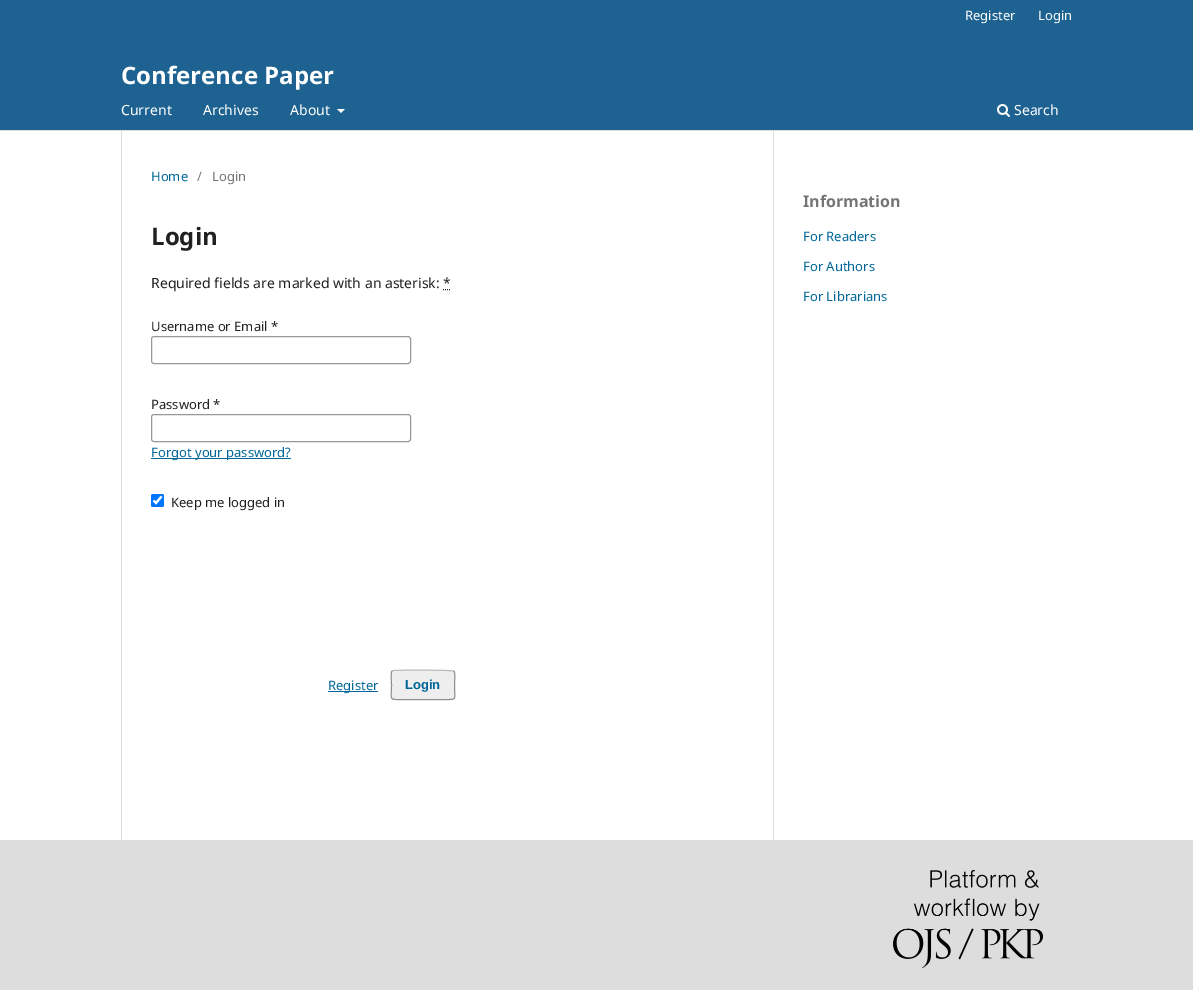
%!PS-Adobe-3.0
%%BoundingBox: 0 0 1193 990
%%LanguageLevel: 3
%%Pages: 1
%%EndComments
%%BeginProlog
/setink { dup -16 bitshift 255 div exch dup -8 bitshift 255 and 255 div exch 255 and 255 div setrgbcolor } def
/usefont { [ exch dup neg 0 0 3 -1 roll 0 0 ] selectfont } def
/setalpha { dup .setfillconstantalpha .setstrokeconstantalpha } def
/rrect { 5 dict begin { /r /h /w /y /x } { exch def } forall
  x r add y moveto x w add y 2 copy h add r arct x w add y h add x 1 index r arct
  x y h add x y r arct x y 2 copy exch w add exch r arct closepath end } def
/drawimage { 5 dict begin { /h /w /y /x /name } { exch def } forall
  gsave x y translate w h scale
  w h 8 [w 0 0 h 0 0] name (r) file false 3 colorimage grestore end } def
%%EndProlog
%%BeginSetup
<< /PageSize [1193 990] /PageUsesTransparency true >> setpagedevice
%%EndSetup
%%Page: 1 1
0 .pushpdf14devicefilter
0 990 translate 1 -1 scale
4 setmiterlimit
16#FFFFFF setink
0 0 1193 990 rectfill
16#1E6292 setink
0 0 1193 130 rectfill
16#DDDDDD setink
0 130 1193 1 rectfill
/NotoSans-Regular 13 usefont
16#FFFFFF setink
965 20 moveto (Register) show
1038 20 moveto (Login) show
/NotoSans-Regular 14 usefont
[
    [(Current) 121 115]
    [(Archives) 203 115]
    [(About) 290 115]
] { aload pop moveto show } forall
337 109 moveto 345 109 lineto 341 113 lineto closepath fill
(img1.raw) 997 104 13 13 drawimage
1014 115 moveto (Search) show
/NotoSans-Bold 24 usefont
121 84 moveto (Conference Paper) show
16#DDDDDD setink
121 131 1 709 rectfill
/NotoSans-Regular 13 usefont
16#006798 setink
151 181 moveto (Home) show
16#757575 setink
197 181 moveto (/) show
212 181 moveto (Login) show
/NotoSans-Bold 24 usefont
16#212121 setink
151 245 moveto (Login) show
/NotoSans-Regular 14 usefont
151 288 moveto (Required fields are marked with an asterisk: *) show
[1 1] 0 setdash
443 289.5 moveto 450.5 289.5 lineto stroke
/NotoSans-Regular 13 usefont
151 331 moveto (Username or Email *) show
16#999999 setink
[] 0 setdash
151.5 336.5 259 27 2.5 rrect stroke
16#212121 setink
151 409 moveto (Password *) show
16#999999 setink
151.5 414.5 259 27 2.5 rrect stroke
16#006798 setink
151 458 140 1 rectfill
151 457 moveto (Forgot your password?) show
16#0075FF setink
151 494 13 13 2 rrect fill
16#FFFFFF setink
2.1 setlinewidth
153.5 500.5 moveto 156 503 lineto 161.5 496.5 lineto stroke
16#212121 setink
171 507 moveto (Keep me logged in) show
16#006798 setink
328 691 50 1 rectfill
328 690 moveto (Register) show
16#EEEEEE setink
391 670 64 30 3 rrect fill
16#BBBBBB setink
1 setlinewidth
392 671 moveto 394 670.5 lineto 399 670 452.5 670 453.5 671 curveto 454 671 lineto stroke
0.4 setalpha
16#000000 setink
454 671 moveto 455.5 673 454.5 682.5 454.5 685 curveto 454.5 701 458 699.5 442.5 699.5 curveto 403.5 699.5 lineto 388 699.5 391.5 701 391.5 685 curveto 391.5 682.5 390.5 673 392 671 curveto stroke
/LiberationSans-Bold 13 usefont
1 setalpha
16#006798 setink
405 689 moveto (Login) show
16#DDDDDD setink
773 131 1 709 rectfill
/NotoSans-Bold 16 usefont
16#757575 setink
803 207 moveto (Information) show
/NotoSans-Regular 13 usefont
16#006798 setink
[
    [(For Readers) 803 241]
    [(For Authors) 803 271]
    [(For Librarians) 803 301]
] { aload pop moveto show } forall
16#DDDDDD setink
0 840 1193 150 rectfill
(img2.raw) 893 870 150 98 drawimage
.poppdf14devicefilter showpage
%%EOF
